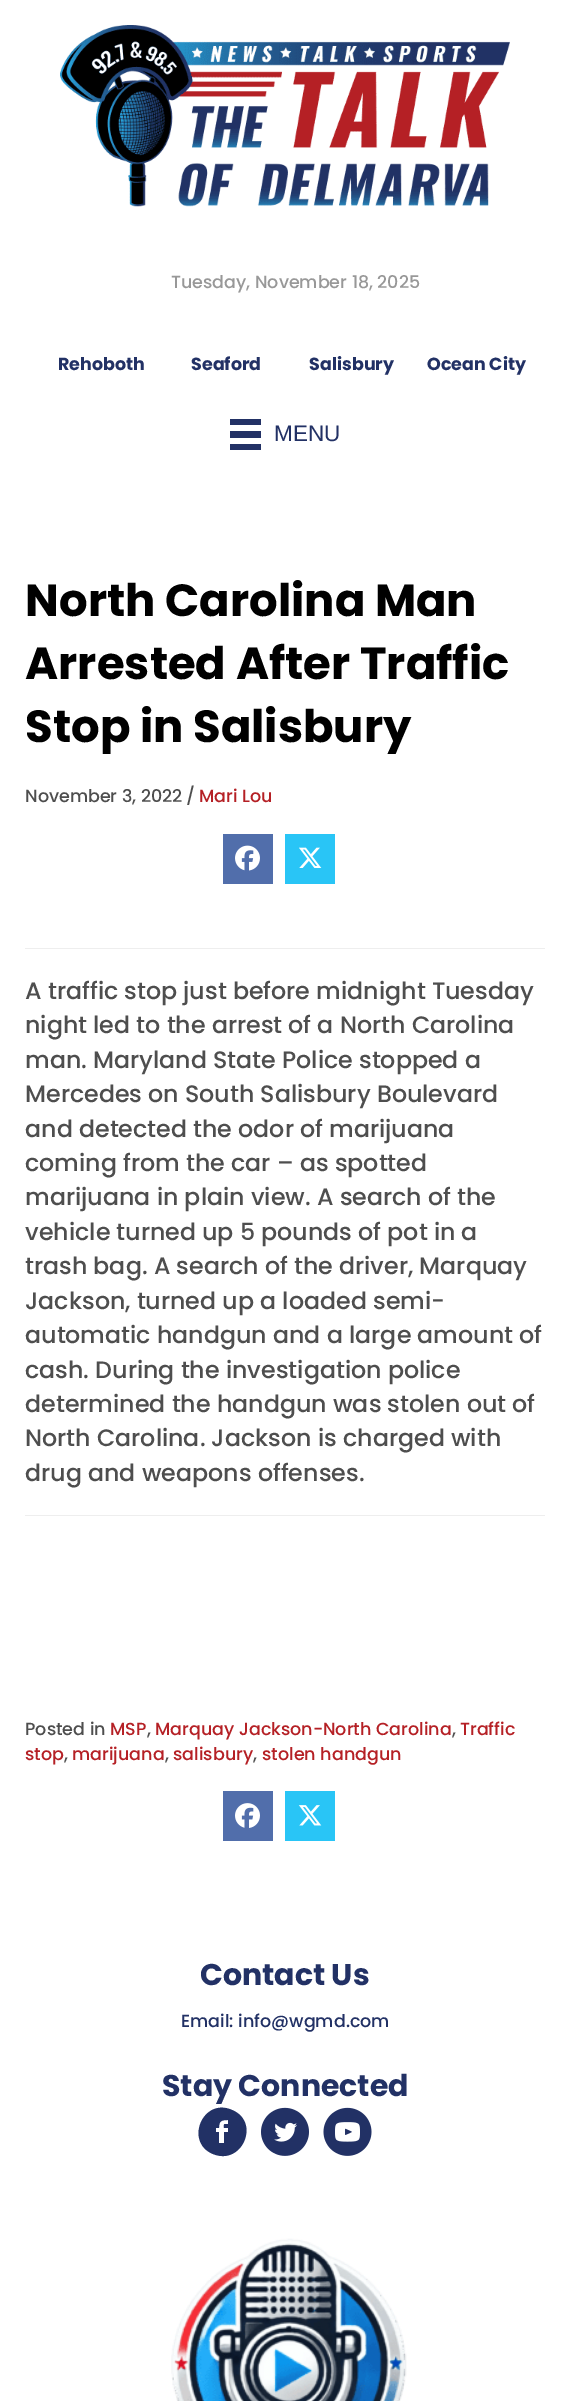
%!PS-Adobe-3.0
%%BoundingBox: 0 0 569 2401
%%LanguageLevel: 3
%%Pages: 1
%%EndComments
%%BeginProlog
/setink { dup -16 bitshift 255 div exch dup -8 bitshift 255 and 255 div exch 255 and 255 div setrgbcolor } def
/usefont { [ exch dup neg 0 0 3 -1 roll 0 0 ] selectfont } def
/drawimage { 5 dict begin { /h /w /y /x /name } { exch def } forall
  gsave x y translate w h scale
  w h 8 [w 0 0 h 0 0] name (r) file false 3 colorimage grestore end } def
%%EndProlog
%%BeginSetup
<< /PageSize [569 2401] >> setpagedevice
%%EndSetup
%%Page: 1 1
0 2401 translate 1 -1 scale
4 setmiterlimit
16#FFFFFF setink
0 0 569 2401 rectfill
(img1.raw) 60 25 450 182 drawimage
/Poppins-Medium 17.5 usefont
16#989898 setink
171 288 moveto (Tuesday, November 18, 2025) show
/Poppins-Bold 17.5 usefont
16#223165 setink
[
    [(Rehoboth) 58 370]
    [(Seaford) 191 370]
    [(Salisbury) 309 370]
    [(Ocean City) 427 370]
] { aload pop moveto show } forall
[
    [230 419 31 6 16#223165]
    [230 431 31 7 16#223165]
    [230 444 31 6 16#223165]
] { aload pop setink rectfill } forall
/LiberationSans-Regular 22.5 usefont
274 441 moveto (MENU) show
/Poppins-Bold 45 usefont
16#000000 setink
[
    [(North Carolina Man) 25 616]
    [(Arrested After Traffic) 25 679]
    [(Stop in Salisbury) 25 742]
] { aload pop moveto show } forall
/Poppins-Medium 17.5 usefont
16#4E4E4E setink
25 802 moveto (November 3, 2022) show
186 802 moveto (/) show
16#B52025 setink
199 802 moveto (Mari Lou) show
16#516EAB setink
223 834 50 50 rectfill
(img2.raw) 235 845 25 26 drawimage
16#29C5F6 setink
285 834 50 50 rectfill
(img3.raw) 299 847 23 21 drawimage
16#EEEEEE setink
25 948 520 1 rectfill
/Poppins-Medium 23.75 usefont
16#4E4E4E setink
[
    [(A traffic stop just before midnight Tuesday) 25 999]
    [(night led to the arrest of a North Carolina) 25 1033]
    [(man. Maryland State Police stopped a) 25 1068]
    [(Mercedes on South Salisbury Boulevard) 25 1102]
    [(and detected the odor of marijuana) 25 1137]
    [(coming from the car – as spotted) 25 1171]
    [(marijuana in plain view. A search of the) 25 1205]
    [(vehicle turned up 5 pounds of pot in a) 25 1240]
    [(trash bag. A search of the driver, Marquay) 25 1274]
    [(Jackson, turned up a loaded semi-) 25 1309]
    [(automatic handgun and a large amount of) 25 1343]
    [(cash. During the investigation police) 25 1378]
    [(determined the handgun was stolen out of) 25 1412]
    [(North Carolina. Jackson is charged with) 25 1446]
    [(drug and weapons offenses.) 25 1481]
] { aload pop moveto show } forall
16#EEEEEE setink
25 1515 520 1 rectfill
/Poppins-Medium 17.5 usefont
16#4E4E4E setink
25 1735 moveto (Posted in) show
16#B52025 setink
110 1735 moveto (MSP) show
16#4E4E4E setink
147 1735 moveto (,) show
16#B52025 setink
155 1735 moveto (Marquay Jackson-North Carolina) show
16#4E4E4E setink
452 1735 moveto (,) show
16#B52025 setink
460 1735 moveto (Traffic) show
25 1760 moveto (stop) show
16#4E4E4E setink
64 1760 moveto (,) show
16#B52025 setink
72 1760 moveto (marijuana) show
16#4E4E4E setink
165 1760 moveto (,) show
16#B52025 setink
173 1760 moveto (salisbury) show
16#4E4E4E setink
253 1760 moveto (,) show
16#B52025 setink
262 1760 moveto (stolen handgun) show
16#516EAB setink
223 1791 50 50 rectfill
(img4.raw) 235 1803 25 25 drawimage
16#29C5F6 setink
285 1791 50 50 rectfill
(img5.raw) 298 1805 24 21 drawimage
/Poppins-Bold 30 usefont
16#223165 setink
200 1985 moveto (Contact Us) show
/Poppins-Medium 17.5 usefont
181 2027 moveto (Email: info@wgmd.com) show
/Poppins-Bold 30 usefont
162 2096 moveto (Stay Connected) show
232 2110 moveto 203 2097 184 2142 213 2154 curveto 242 2166 261 2122 232 2110 curveto closepath 228 2124 moveto 223 2124 224 2124 224 2128 curveto 228 2128 lineto 228 2132 lineto 224 2132 lineto 224 2143 lineto 219 2143 lineto 219 2132 lineto 216 2132 lineto 216 2128 lineto 219 2128 lineto 219 2121 221 2120 228 2120 curveto closepath fill
(img6.raw) 261 2107 48 49 drawimage
(img7.raw) 323 2107 49 49 drawimage
(img8.raw) 171 2238 236 163 drawimage
showpage
%%EOF
